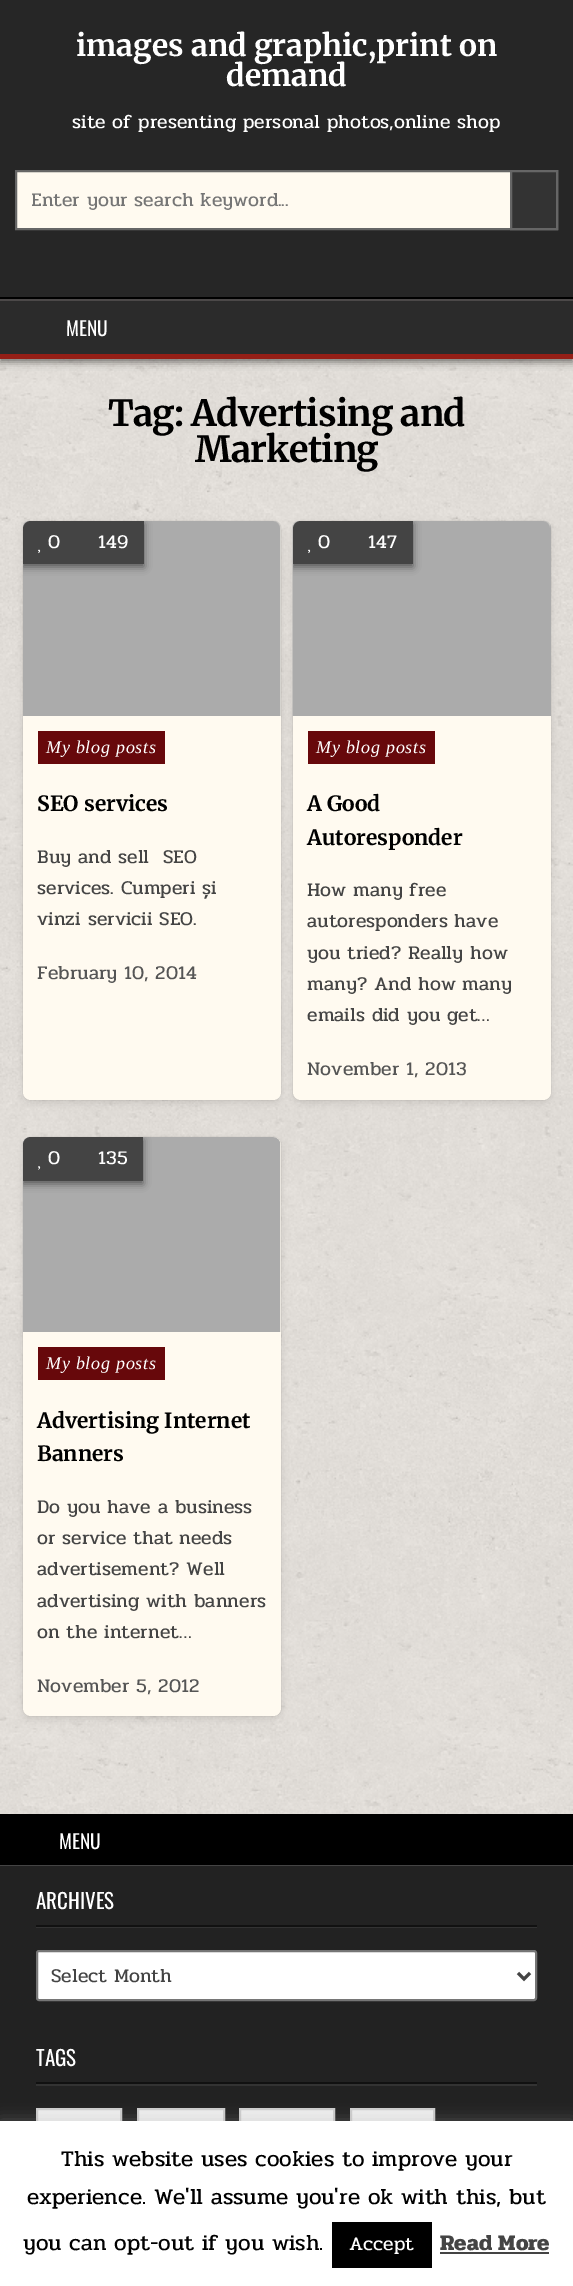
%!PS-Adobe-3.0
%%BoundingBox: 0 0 573 2286
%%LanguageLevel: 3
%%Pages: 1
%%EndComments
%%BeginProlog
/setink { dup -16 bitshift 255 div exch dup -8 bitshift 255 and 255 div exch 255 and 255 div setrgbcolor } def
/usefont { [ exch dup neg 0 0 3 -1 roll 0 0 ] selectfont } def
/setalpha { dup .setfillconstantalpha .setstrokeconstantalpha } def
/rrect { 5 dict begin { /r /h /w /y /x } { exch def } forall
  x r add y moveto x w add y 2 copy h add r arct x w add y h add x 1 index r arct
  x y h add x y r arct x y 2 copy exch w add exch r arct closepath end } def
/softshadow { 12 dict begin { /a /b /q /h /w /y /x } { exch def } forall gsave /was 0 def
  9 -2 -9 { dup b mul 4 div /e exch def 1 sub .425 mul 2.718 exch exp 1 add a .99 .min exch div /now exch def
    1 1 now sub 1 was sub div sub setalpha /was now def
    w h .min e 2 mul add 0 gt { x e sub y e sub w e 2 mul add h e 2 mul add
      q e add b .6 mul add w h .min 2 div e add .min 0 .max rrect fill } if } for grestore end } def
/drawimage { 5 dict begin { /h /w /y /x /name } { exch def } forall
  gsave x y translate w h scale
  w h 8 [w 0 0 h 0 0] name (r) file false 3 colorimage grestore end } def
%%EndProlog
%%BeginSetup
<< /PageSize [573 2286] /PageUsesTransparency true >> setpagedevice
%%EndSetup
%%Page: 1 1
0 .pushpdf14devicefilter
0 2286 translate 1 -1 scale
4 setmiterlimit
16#FFFFFF setink
0 0 573 2286 rectfill
(img1.raw) 0 359 573 1455 drawimage
16#000000 setink
0 302 573 60 0 4 0.5 softshadow
16#262626 setink
0 0 573 297 rectfill
16#000000 setink
0 297 573 2 rectfill
/Merriweather-Bold 30 usefont
16#FFFFFF setink
76 56 moveto (images and graphic,print on) show
226 86 moveto (demand) show
/Pridi-Regular 19.5 usefont
72 128 moveto (site of presenting personal photos,online shop) show
16#FFFAF0 setink
17 172 493 56 rectfill
16#666666 setink
2 setlinewidth
16 171 541 58 rectstroke
gsave
32 185 504 30 rectclip
16#757575 setink
31 206 moveto (Enter your search keyword...) show
grestore
16#333333 setink
511 171 moveto 557 171 lineto 557 229 lineto 511 229 lineto closepath gsave fill grestore
16#666666 setink
stroke
[
    [0 301 573 53 16#2B2B2B]
    [0 299 573 2 16#4C4949]
    [0 354 573 5 16#951F17]
] { aload pop setink rectfill } forall
/Oswald-Regular 19.5 usefont
16#FFFFFF setink
66 336 moveto (MENU) show
/Merriweather-Bold 36 usefont
16#000000 setink
108 426 moveto -0.75 0 (Tag: Advertising and) ashow
195 462 moveto -0.75 0 (Marketing) ashow
23 524 258 579 8 3.5 0.1 softshadow
23 521 258 579 8 0.5 0.1 softshadow
16#FFFAF0 setink
23 521 258 579 8 rrect fill
(img2.raw) 23 521 258 195 drawimage
gsave
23 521 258 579 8 rrect clip newpath
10 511 moveto 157 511 lineto 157 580 lineto 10 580 lineto closepath 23 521 moveto 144 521 lineto 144 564 lineto 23 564 lineto closepath eoclip newpath
16#000000 setink
23 524 121 43 0 4 0.5 softshadow
grestore
0.6 setalpha
16#000000 setink
31 521 moveto 144 521 lineto 144 564 lineto 23 564 lineto 23 529 lineto 23 524.5 26.5 521 31 521 curveto closepath fill
/Pridi-Regular 19.5 usefont
1 setalpha
16#FFFFFF setink
48 548 moveto (0) show
(img3.raw) 38 549 3 5 drawimage
98 548 moveto (149) show
16#67080B setink
38 731 127 33 rectfill
/LiberationSerif-Italic 18 usefont
16#FFFFFF setink
46 753 moveto 0.75 0 (My blog posts) ashow
/Merriweather-Bold 21 usefont
16#000000 setink
37 811 moveto (SEO services) show
/Pridi-Regular 19.5 usefont
16#444444 setink
[
    [(Buy and sell  SEO) 37 863]
    [(services. Cumperi și) 37 894]
    [(vinzi servicii SEO.) 37 925]
] { aload pop moveto show } forall
16#555555 setink
37 979 moveto (February 10, 2014) show
16#000000 setink
293 524 258 579 8 3.5 0.1 softshadow
293 521 258 579 8 0.5 0.1 softshadow
16#FFFAF0 setink
293 521 258 579 8 rrect fill
(img4.raw) 292 521 259 195 drawimage
gsave
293 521 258 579 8 rrect clip newpath
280 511 moveto 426 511 lineto 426 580 lineto 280 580 lineto closepath 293 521 moveto 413 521 lineto 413 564 lineto 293 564 lineto closepath eoclip newpath
16#000000 setink
293 524 120 43 0 4 0.5 softshadow
grestore
0.6 setalpha
16#000000 setink
301 521 moveto 413 521 lineto 413 564 lineto 293 564 lineto 293 529 lineto 293 524.5 296.5 521 301 521 curveto closepath fill
1 setalpha
16#FFFFFF setink
318 548 moveto (0) show
(img3.raw) 308 549 3 5 drawimage
368 548 moveto (147) show
16#67080B setink
308 731 127 33 rectfill
/LiberationSerif-Italic 18 usefont
16#FFFFFF setink
316 753 moveto 0.75 0 (My blog posts) ashow
/Merriweather-Bold 21 usefont
16#000000 setink
307 811 moveto (A Good) show
307 845 moveto (Autoresponder) show
/Pridi-Regular 19.5 usefont
16#444444 setink
[
    [(How many free) 307 896]
    [(autoresponders have) 307 927]
    [(you tried? Really how) 307 959]
    [(many? And how many) 307 990]
    [(emails did you get…) 307 1021]
] { aload pop moveto show } forall
16#555555 setink
307 1075 moveto (November 1, 2013) show
16#000000 setink
23 1140 258 579 8 3.5 0.1 softshadow
23 1137 258 579 8 0.5 0.1 softshadow
16#FFFAF0 setink
23 1137 258 579 8 rrect fill
(img5.raw) 22 1137 259 195 drawimage
gsave
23 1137 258 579 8 rrect clip newpath
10 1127 moveto 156 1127 lineto 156 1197 lineto 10 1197 lineto closepath 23 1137 moveto 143 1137 lineto 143 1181 lineto 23 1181 lineto closepath eoclip newpath
16#000000 setink
23 1140 120 44 0 4 0.5 softshadow
grestore
0.6 setalpha
16#000000 setink
31 1137 moveto 143 1137 lineto 143 1181 lineto 23 1181 lineto 23 1145 lineto 23 1140.5 26.5 1137 31 1137 curveto closepath fill
1 setalpha
16#FFFFFF setink
48 1164 moveto (0) show
(img6.raw) 38 1166 3 4 drawimage
98 1164 moveto (135) show
16#67080B setink
38 1347 127 33 rectfill
/LiberationSerif-Italic 18 usefont
16#FFFFFF setink
46 1369 moveto 0.75 0 (My blog posts) ashow
/Merriweather-Bold 21 usefont
16#000000 setink
37 1428 moveto (Advertising Internet) show
37 1461 moveto (Banners) show
/Pridi-Regular 19.5 usefont
16#444444 setink
[
    [(Do you have a business) 37 1513]
    [(or service that needs) 37 1544]
    [(advertisement? Well) 37 1575]
    [(advertising with banners) 37 1607]
    [(on the internet…) 37 1638]
] { aload pop moveto show } forall
16#555555 setink
37 1692 moveto (November 5, 2012) show
16#000000 setink
0 1814 573 51 rectfill
16#444444 setink
0 1865 573 1 rectfill
/Oswald-Regular 19.5 usefont
16#FFFFFF setink
59 1849 moveto (MENU) show
[
    [0 1866 573 255 16#222222]
    [36 1927 501 1 16#333333]
    [36 1925 501 2 16#111111]
] { aload pop setink rectfill } forall
/Oswald-Regular 21 usefont
16#FFFFFF setink
36 1909 moveto (ARCHIVES) show
37 1951 499 49 2 rrect gsave fill grestore
16#767676 setink
stroke
16#444444 setink
3 setlinewidth
518 1973 moveto 524 1979 lineto 530 1973 lineto stroke
/Pridi-Regular 19.5 usefont
51 1982 moveto (Select Month) show
16#333333 setink
36 2084 501 2 rectfill
16#111111 setink
36 2082 501 2 rectfill
/Oswald-Regular 21 usefont
16#FFFFFF setink
36 2066 moveto (TAGS) show
16#EEEEEE setink
38 2110 82 11 rectfill
16#CCCCCC setink
2 setlinewidth
37 2109 84 35 rectstroke
16#EEEEEE setink
139 2110 84 11 rectfill
16#CCCCCC setink
138 2109 86 35 rectstroke
16#EEEEEE setink
241 2110 92 11 rectfill
16#CCCCCC setink
240 2109 94 35 rectstroke
16#EEEEEE setink
352 2110 81 11 rectfill
16#CCCCCC setink
351 2109 83 35 rectstroke
16#ACABAB setink
0 2120 573 165 0 7.5 0.3 softshadow
16#FFFFFF setink
0 2121 573 165 rectfill
/Pridi-Regular 22.5 usefont
16#000000 setink
[
    [(This website uses cookies to improve your) 61 2166]
    [(experience. We'll assume you're ok with this, but) 27 2204]
    [(you can opt-out if you wish.) 23 2250]
] { aload pop moveto show } forall
332 2222 100 46 rectfill
/Pridi-Regular 19.5 usefont
16#FFFFFF setink
349 2250 moveto (Accept) show
/Pridi-Bold 22.5 usefont
16#444444 setink
440 2250 moveto (Read More) show
440 2252 109 2 rectfill
.poppdf14devicefilter showpage
%%EOF
